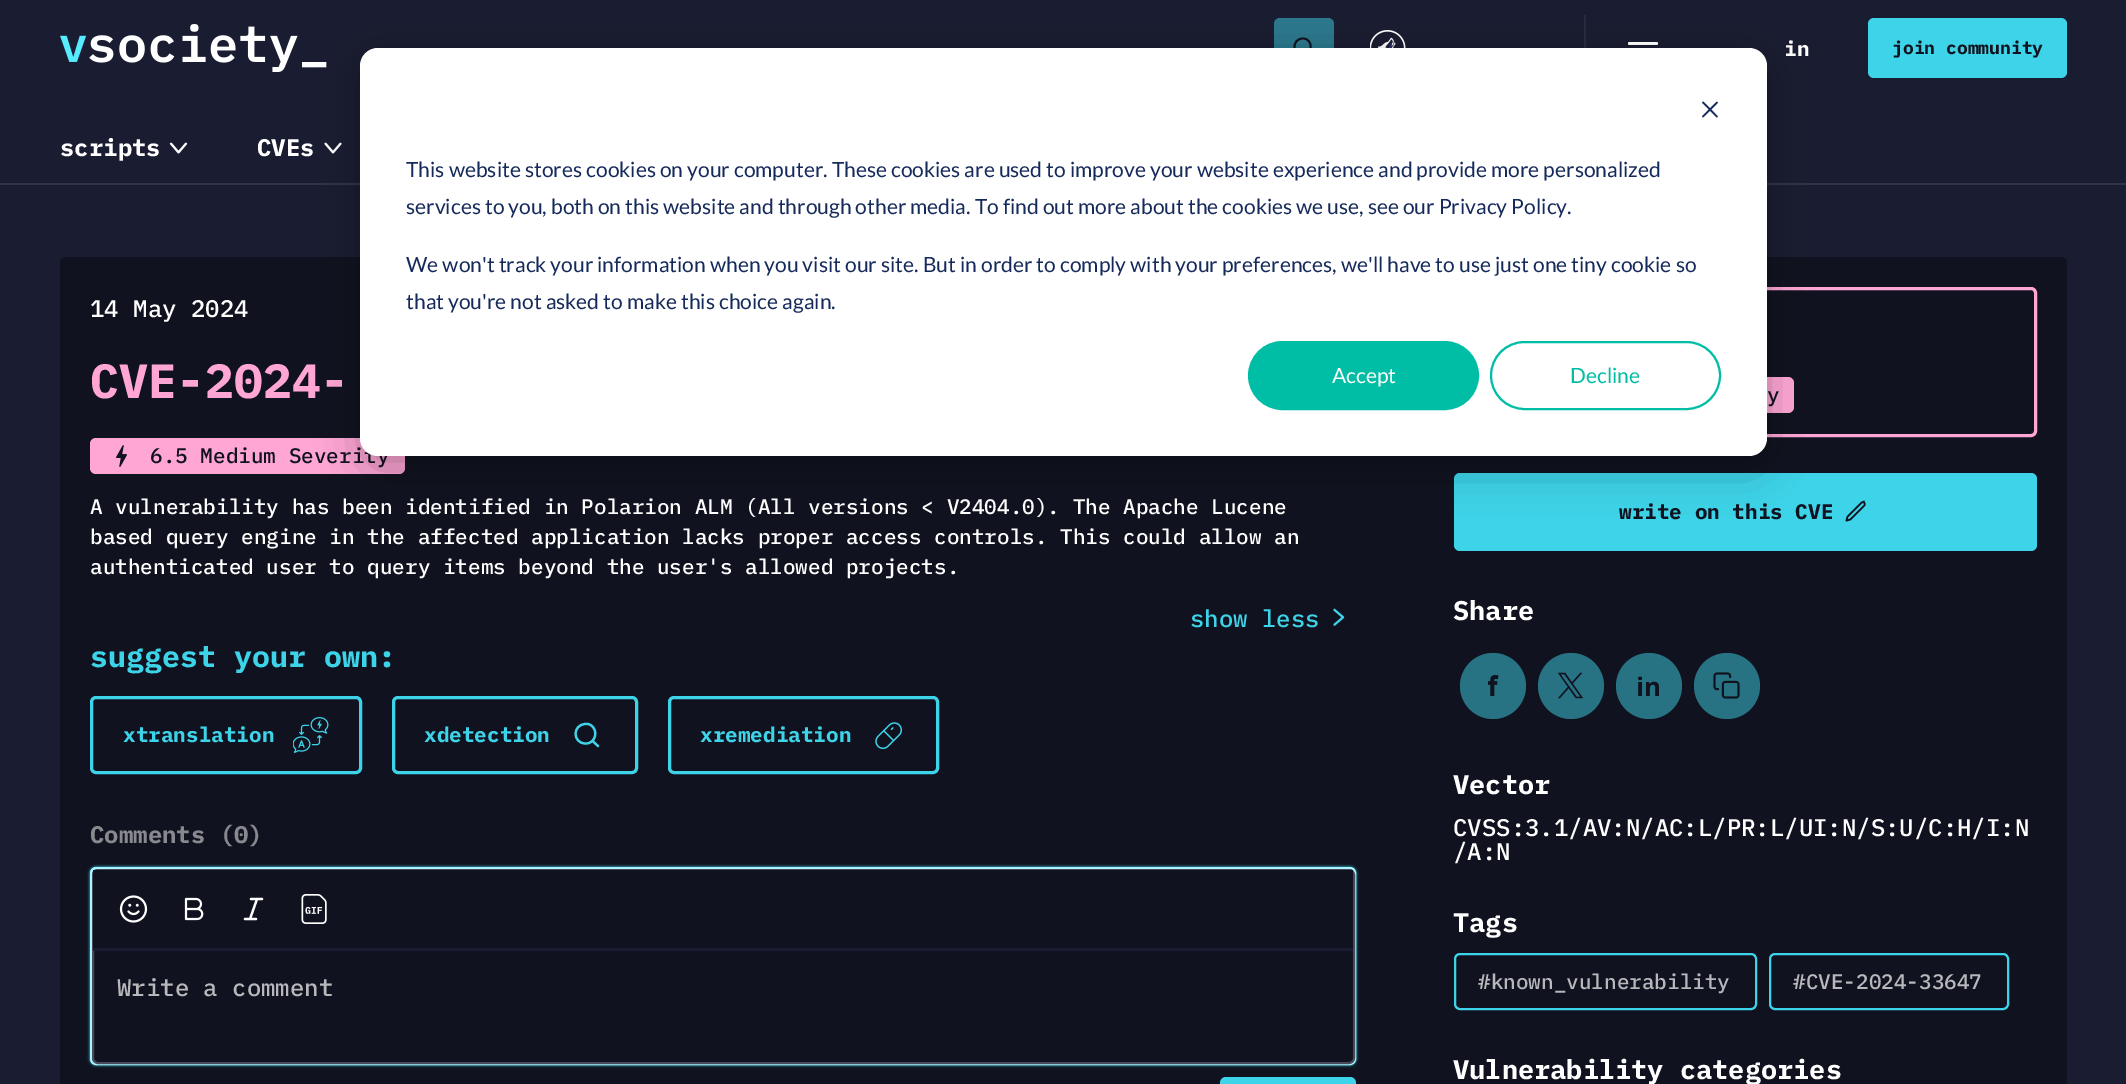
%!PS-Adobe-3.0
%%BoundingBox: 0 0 2126 1084
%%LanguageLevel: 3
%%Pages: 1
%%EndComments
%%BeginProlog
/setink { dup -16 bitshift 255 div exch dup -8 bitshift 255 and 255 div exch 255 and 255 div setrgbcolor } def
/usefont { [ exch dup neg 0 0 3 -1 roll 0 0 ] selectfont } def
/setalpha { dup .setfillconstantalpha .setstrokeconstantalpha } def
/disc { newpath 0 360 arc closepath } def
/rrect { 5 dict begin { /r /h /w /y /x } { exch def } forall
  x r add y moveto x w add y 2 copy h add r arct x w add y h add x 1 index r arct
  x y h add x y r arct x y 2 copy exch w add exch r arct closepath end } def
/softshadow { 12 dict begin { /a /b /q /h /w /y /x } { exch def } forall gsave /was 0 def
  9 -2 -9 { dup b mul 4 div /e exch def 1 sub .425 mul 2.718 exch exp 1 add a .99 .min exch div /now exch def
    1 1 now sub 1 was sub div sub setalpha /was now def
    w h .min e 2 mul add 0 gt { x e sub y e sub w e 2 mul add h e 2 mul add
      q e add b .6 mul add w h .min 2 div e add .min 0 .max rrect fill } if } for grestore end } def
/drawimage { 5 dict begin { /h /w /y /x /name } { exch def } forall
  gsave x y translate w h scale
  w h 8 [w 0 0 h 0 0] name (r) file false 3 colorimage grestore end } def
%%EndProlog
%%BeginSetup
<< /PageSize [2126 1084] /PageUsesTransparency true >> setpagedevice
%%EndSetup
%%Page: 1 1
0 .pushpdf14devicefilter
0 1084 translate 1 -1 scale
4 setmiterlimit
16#1A1D31 setink
0 0 2126 1084 rectfill
(img1.raw) 60 24 267 48 drawimage
16#2C788D setink
1274 18 60 60 6 rrect fill
16#10121F setink
1.9 setlinewidth
1 setlinecap
1 setlinejoin
1302.5 55.5 moveto 1313.5 55.5 1313.5 38 1302.5 38.5 curveto 1291.5 39 1292 55 1302.5 55.5 curveto closepath 1313 57.5 moveto 1308.5 53 lineto stroke
(img2.raw) 1370 30 36 18 drawimage
16#282A3E setink
1584 15 2 33 rectfill
16#FFFFFF setink
1628 42 30 3 1.5 rrect fill
/IBMPlexMono-Bold 21 usefont
1784 56 moveto (in) show
16#3DD3E8 setink
1868 18 199 60 6 rrect fill
/IBMPlexMono-Bold 18 usefont
16#10121F setink
1892 54 moveto (join community) show
16#313446 setink
0 183 2126 2 rectfill
/IBMPlexMono-Bold 24 usefont
16#FFFFFF setink
60 156 moveto (scripts) show
(img3.raw) 169 142 19 12 drawimage
257 156 moveto (CVEs) show
(img4.raw) 324 142 18 12 drawimage
16#10121F setink
60 257 2007 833 6 rrect fill
/IBMPlexMono-Medium 24 usefont
16#FFFFFF setink
90 317 moveto (14 May 2024) show
/IBMPlexMono-Bold 48 usefont
16#FFA6D5 setink
90 398 moveto (CVE-2024-) show
90 438 315 36 6 rrect fill
(img5.raw) 116 445 11 22 drawimage
/IBMPlexMono-Medium 21 usefont
16#10121F setink
150 463 moveto (6.5 Medium Severity) show
16#FFFFFF setink
[
    [(A vulnerability has been identified in Polarion ALM \(All versions < V2404.0\). The Apache Lucene) 90 514]
    [(based query engine in the affected application lacks proper access controls. This could allow an) 90 544]
    [(authenticated user to query items beyond the user's allowed projects.) 90 574]
] { aload pop moveto show } forall
/IBMPlexMono-Medium 24 usefont
16#3DD3E8 setink
1190 627 moveto (show less) show
(img6.raw) 1333 608 12 18 drawimage
/IBMPlexMono-Bold 30 usefont
90 667 moveto (suggest your own:) show
3 setlinewidth
0 setlinecap
0 setlinejoin
91.5 697.5 269 75 4.5 rrect stroke
/IBMPlexMono-Bold 21 usefont
123 742 moveto (xtranslation) show
(img7.raw) 293 717 36 36 drawimage
393.5 697.5 243 75 4.5 rrect stroke
424 742 moveto (xdetection) show
2.2 setlinewidth
1 setlinecap
1 setlinejoin
585.5 743.5 moveto 595.5 744 599 730 590.5 725 curveto 589 724 587 723.5 585.5 724 curveto 572 724.5 572.5 743.5 585.5 743.5 curveto closepath 598 746 moveto 592.5 741 lineto stroke
3 setlinewidth
0 setlinecap
0 setlinejoin
669.5 697.5 268 75 4.5 rrect stroke
700 742 moveto (xremediation) show
(img8.raw) 875 722 27 27 drawimage
/IBMPlexMono-Bold 24 usefont
16#88898F setink
90 843 moveto (Comments \(0\)) show
16#3DD3E8 setink
90 867 1266 198 6 1.5 1 softshadow
16#A9F5FF setink
2 setlinewidth
91 868 1264 196 5 rrect stroke
16#10121F setink
93 870 1261 193 5 rrect gsave fill grestore
16#48495B setink
stroke
16#10121F setink
93 870 1260 78 rectfill
16#1A1D31 setink
93 948 1260 3 rectfill
(img9.raw) 119 895 29 28 drawimage
(img10.raw) 184 897 20 24 drawimage
16#FFFFFF setink
2.2 setlinewidth
1 setlinecap
1 setlinejoin
262 899 moveto 251 899 lineto 256 919 moveto 245 919 lineto 257 899 moveto 250 919 lineto stroke
(img11.raw) 301 894 26 30 drawimage
/IBMPlexMono-Medium 24 usefont
16#B7B8BC setink
117 996 moveto (Write a comment) show
16#3DD3E8 setink
1220 1077 136 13 6 rrect fill
16#FFA6D5 setink
3 setlinewidth
0 setlinecap
0 setlinejoin
1455.5 288.5 580 147 4.5 rrect stroke
1481 377 313 36 6 rrect fill
/IBMPlexMono-Medium 21 usefont
16#10121F setink
1767 402 moveto (y) show
16#3DD3E8 setink
1454 473 583 78 6 rrect fill
/IBMPlexMono-Bold 21 usefont
16#10121F setink
1619 519 moveto (write on this CVE) show
(img12.raw) 1845 500 21 22 drawimage
/IBMPlexMono-Bold 27 usefont
16#FFFFFF setink
1453 620 moveto (Share) show
16#277384 setink
1493 686 33 disc fill
(img13.raw) 1488 675 11 21 drawimage
1571 686 33 disc fill
(img14.raw) 1557 672 27 27 drawimage
1649 686 33 disc fill
(img15.raw) 1638 676 21 20 drawimage
1727 686 33 disc fill
(img16.raw) 1713 672 27 27 drawimage
16#FFFFFF setink
1453 794 moveto (Vector) show
/IBMPlexMono-Medium 24 usefont
1453 836 moveto (CVSS:3.1/AV:N/AC:L/PR:L/UI:N/S:U/C:H/I:N) show
1453 860 moveto (/A:N) show
/IBMPlexMono-Bold 27 usefont
1453 932 moveto (Tags) show
16#3DD3E8 setink
2 setlinewidth
1455 954 301 55 5 rrect stroke
/IBMPlexMono-Medium 21 usefont
16#B7B8BC setink
1478 989 moveto (#known_vulnerability) show
16#3DD3E8 setink
1770 954 238 55 5 rrect stroke
16#B7B8BC setink
1793 989 moveto (#CVE-2024-33647) show
/IBMPlexMono-Bold 27 usefont
16#FFFFFF setink
1453 1079 moveto (Vulnerability categories) show
16#000000 setink
360 60 1407 408 18 21 0.28 softshadow
16#FFFFFF setink
360 48 1407 408 18 rrect fill
(img17.raw) 1702 101 16 17 drawimage
/Lato-Regular 21 usefont
16#15295A setink
[
    [(This website stores cookies on your computer. These cookies are used to improve your website experience and provide more personalized) 406 177]
    [(services to you, both on this website and through other media. To find out more about the cookies we use, see our Privacy Policy.) 406 214]
    [(We won't track your information when you visit our site. But in order to comply with your preferences, we'll have to use just one tiny cookie so) 406 272]
    [(that you're not asked to make this choice again.) 406 309]
] { aload pop moveto show } forall
16#00BDA5 setink
1249 342 229 67 33.5 rrect gsave fill grestore
stroke
16#FFFFFF setink
1332 383 moveto (Accept) show
16#00BDA5 setink
1491 342 229 67 33.5 rrect stroke
1570 383 moveto (Decline) show
.poppdf14devicefilter showpage
%%EOF
